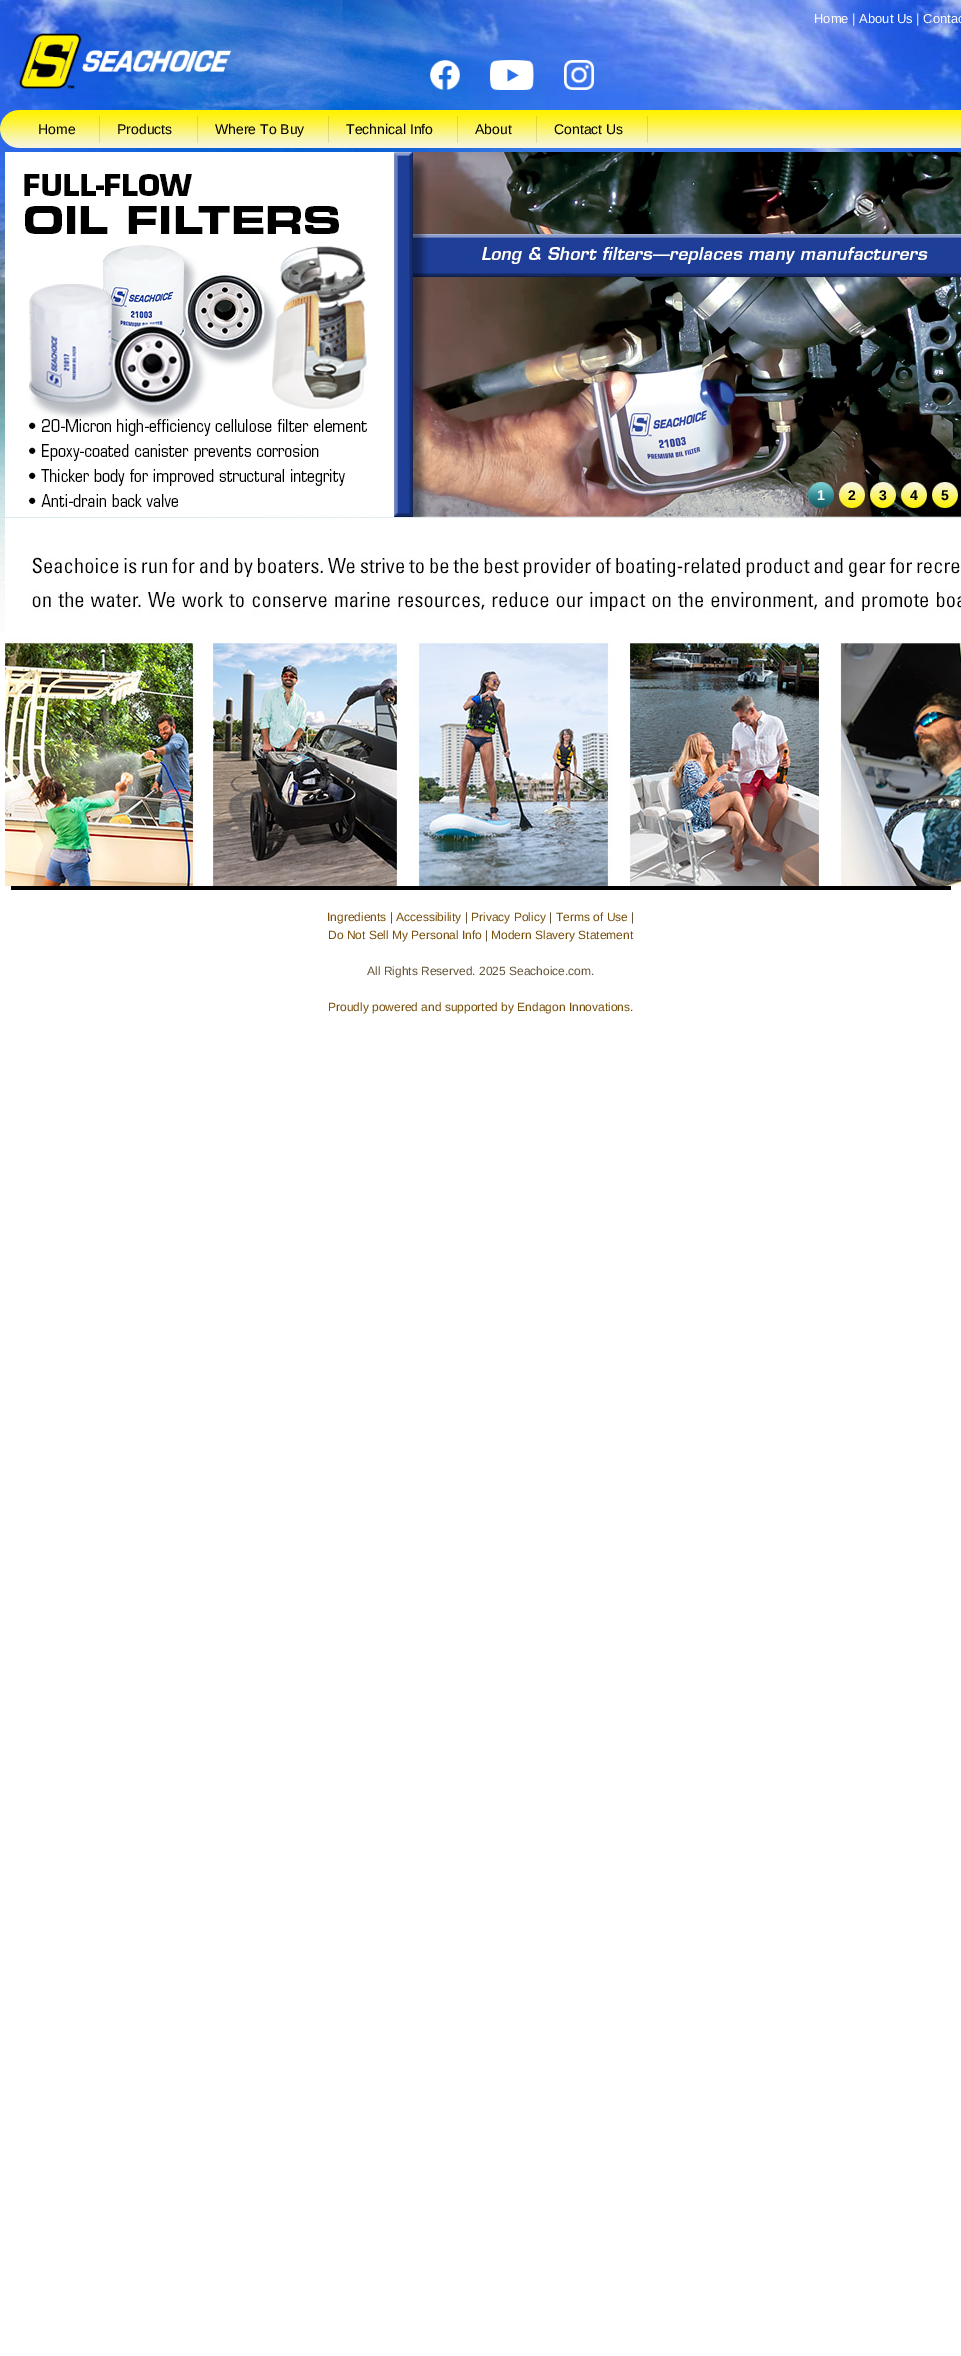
%!PS-Adobe-3.0
%%BoundingBox: 0 0 961 2356
%%LanguageLevel: 3
%%Pages: 1
%%EndComments
%%BeginProlog
/setink { dup -16 bitshift 255 div exch dup -8 bitshift 255 and 255 div exch 255 and 255 div setrgbcolor } def
/usefont { [ exch dup neg 0 0 3 -1 roll 0 0 ] selectfont } def
/drawimage { 5 dict begin { /h /w /y /x /name } { exch def } forall
  gsave x y translate w h scale
  w h 8 [w 0 0 h 0 0] name (r) file false 3 colorimage grestore end } def
%%EndProlog
%%BeginSetup
<< /PageSize [961 2356] >> setpagedevice
%%EndSetup
%%Page: 1 1
0 2356 translate 1 -1 scale
4 setmiterlimit
16#FFFFFF setink
0 0 961 2356 rectfill
(img1.raw) 0 0 961 632 drawimage
/LiberationSans-Regular 13 usefont
814 23 moveto (Home | About Us | Contac) show
(img2.raw) 19 33 212 56 drawimage
(img3.raw) 430 60 30 30 drawimage
(img4.raw) 490 60 44 30 drawimage
(img5.raw) 564 60 30 30 drawimage
(img6.raw) 0 110 21 38 drawimage
(img7.raw) 21 110 940 38 drawimage
(img8.raw) 99 116 1 27 drawimage
/LiberationSans-Regular 14 usefont
16#000000 setink
38 134 moveto (Home) show
(img8.raw) 197 116 1 27 drawimage
117 134 moveto (Products) show
(img8.raw) 328 116 1 27 drawimage
215 134 moveto (Where To Buy) show
(img8.raw) 457 116 1 27 drawimage
346 134 moveto (Technical Info) show
(img8.raw) 536 116 1 27 drawimage
475 134 moveto (About) show
(img8.raw) 647 116 1 27 drawimage
554 134 moveto (Contact Us) show
(img9.raw) 5 152 956 365 drawimage
(img10.raw) 808 482 26 26 drawimage
/LiberationSans-Bold 14 usefont
16#FFFFFF setink
817 500 moveto (1) show
(img11.raw) 839 482 26 26 drawimage
16#000000 setink
848 500 moveto (2) show
(img12.raw) 870 482 26 26 drawimage
879 500 moveto (3) show
(img13.raw) 901 482 26 26 drawimage
910 500 moveto (4) show
(img14.raw) 932 482 26 26 drawimage
941 500 moveto (5) show
(img15.raw) 5 518 956 368 drawimage
11 886 940 4 rectfill
/LiberationSans-Regular 12 usefont
16#774E0A setink
327 921 moveto (Ingredients) show
16#635338 setink
390 921 moveto (|) show
16#774E0A setink
396 921 moveto (Accessibility) show
16#635338 setink
465 921 moveto (|) show
16#774E0A setink
471 921 moveto (Privacy Policy) show
16#635338 setink
549 921 moveto (|) show
16#774E0A setink
556 921 moveto (Terms of Use) show
16#635338 setink
631 921 moveto (|) show
16#774E0A setink
328 939 moveto (Do Not Sell My Personal Info) show
16#635338 setink
485 939 moveto (|) show
16#774E0A setink
491 939 moveto (Modern Slavery Statement) show
16#635338 setink
367 975 moveto (All Rights Reserved. 2025 Seachoice.com.) show
16#774E0A setink
328 1011 moveto (Proudly powered and supported by Endagon Innovations.) show
showpage
%%EOF
